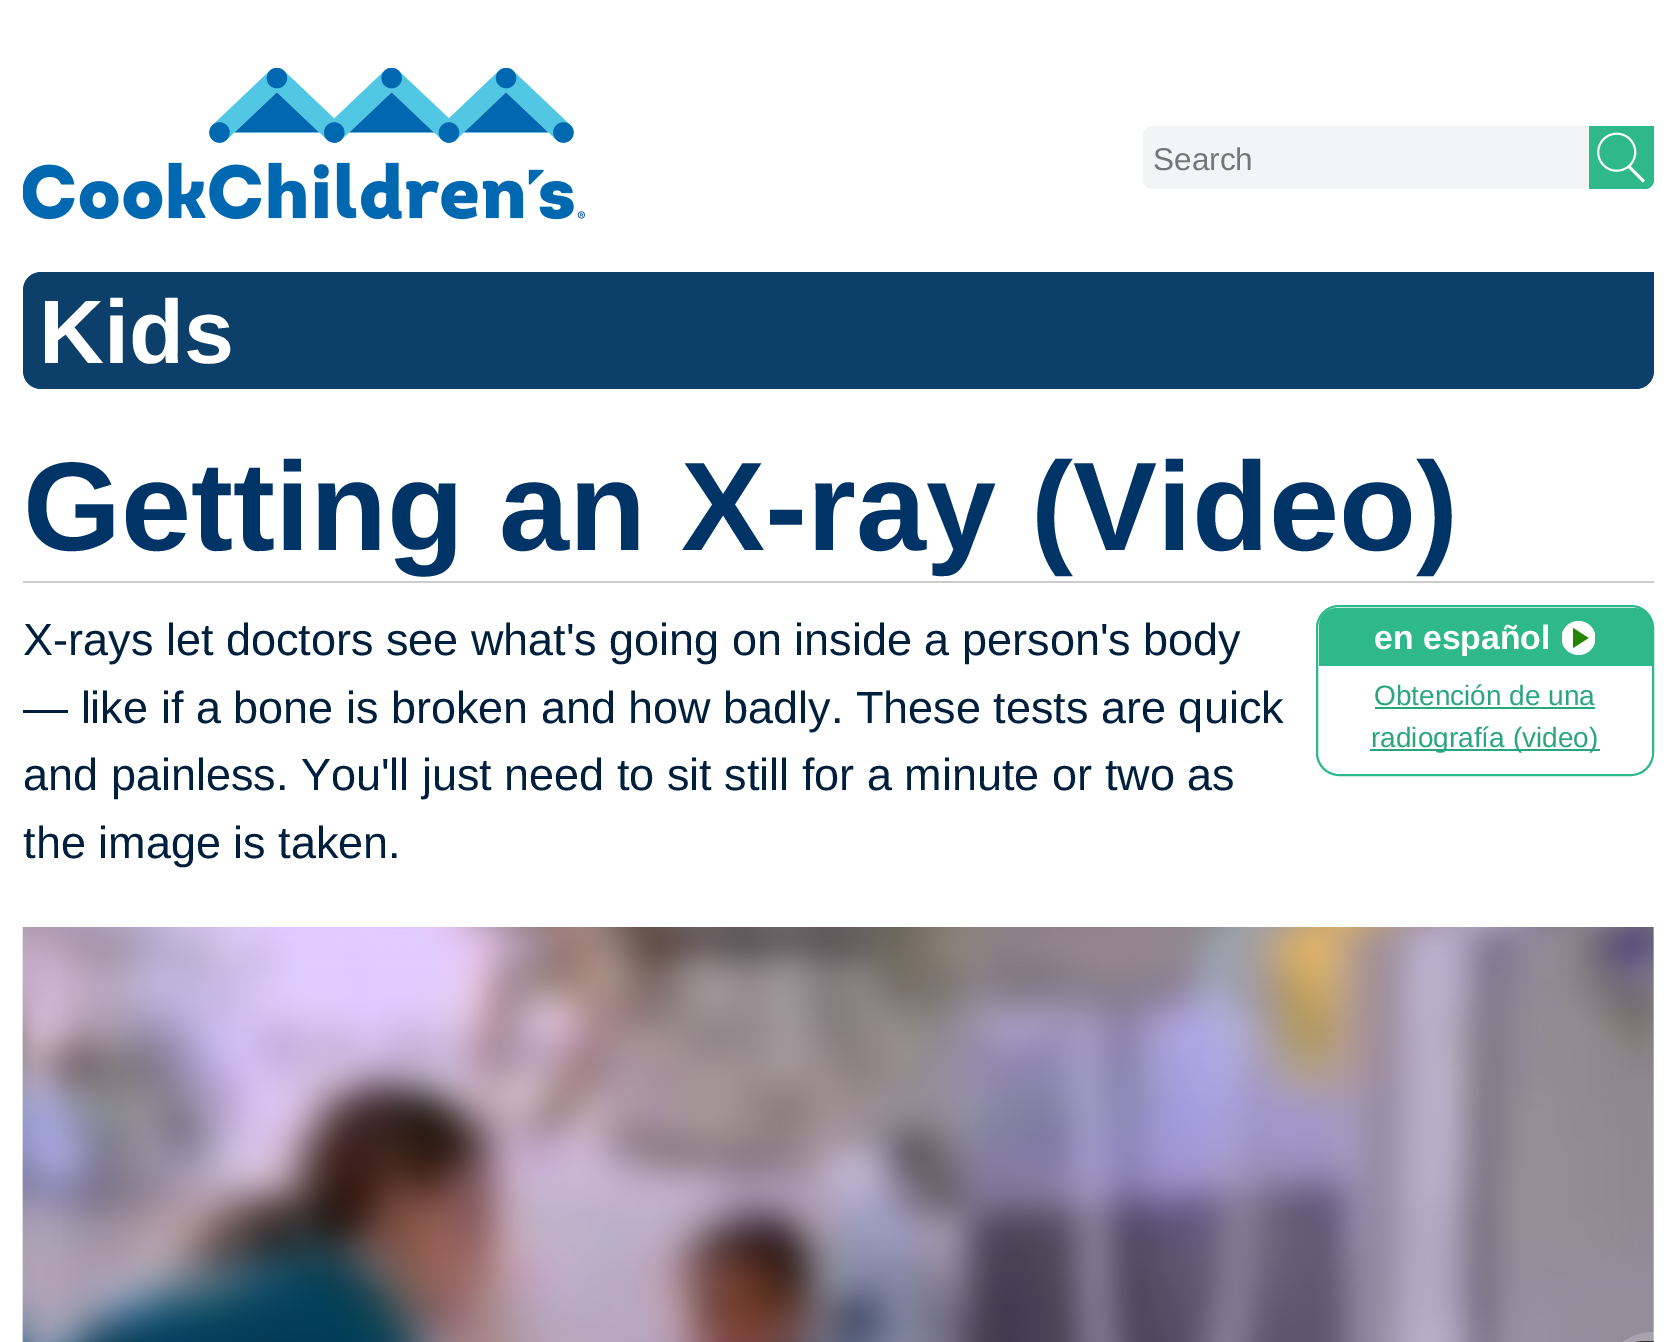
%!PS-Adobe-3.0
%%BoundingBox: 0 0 1676 1342
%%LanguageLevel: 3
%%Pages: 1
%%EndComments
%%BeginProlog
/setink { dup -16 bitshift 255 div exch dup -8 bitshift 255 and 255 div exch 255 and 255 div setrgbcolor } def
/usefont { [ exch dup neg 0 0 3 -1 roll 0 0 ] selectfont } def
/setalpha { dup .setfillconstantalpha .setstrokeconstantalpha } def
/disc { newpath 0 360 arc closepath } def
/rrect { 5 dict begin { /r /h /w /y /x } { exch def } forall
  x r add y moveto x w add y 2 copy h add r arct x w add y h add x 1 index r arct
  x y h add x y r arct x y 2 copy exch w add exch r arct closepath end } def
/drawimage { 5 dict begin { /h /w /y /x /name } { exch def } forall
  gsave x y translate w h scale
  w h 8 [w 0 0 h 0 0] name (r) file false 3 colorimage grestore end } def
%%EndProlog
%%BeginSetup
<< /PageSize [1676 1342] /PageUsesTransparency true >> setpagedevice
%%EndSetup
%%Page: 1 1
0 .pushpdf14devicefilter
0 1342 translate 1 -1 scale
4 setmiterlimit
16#FFFFFF setink
0 0 1676 1342 rectfill
(img1.raw) 23 68 562 152 drawimage
16#F2F4F5 setink
1152 126 moveto 1593 126 lineto 1593 189 lineto 1152 189 lineto 1147 189 1143 185 1143 180 curveto 1143 135 lineto 1143 130 1147 126 1152 126 curveto closepath fill
/LiberationSans-Regular 31.5 usefont
16#757575 setink
1153 170 moveto (Search) show
16#2FB88A setink
1589 126 moveto 1654 126 lineto 1654 180 lineto 1654 185 1650 189 1645 189 curveto 1589 189 lineto closepath fill
(img2.raw) 1597 132 48 51 drawimage
16#0D3F6B setink
41 272 moveto 1654 272 lineto 1654 371 lineto 1654 381 1646 389 1636 389 curveto 41 389 lineto 31 389 23 381 23 371 curveto 23 290 lineto 23 280 31 272 41 272 curveto closepath fill
/LiberationSans-Bold 90 usefont
16#FFFFFF setink
39 363 moveto (Kids) show
16#CCCCCC setink
23 581 1631 2 rectfill
/LiberationSans-Bold 126 usefont
16#003366 setink
23 550 moveto (Getting an X-ray \(Video\)) show
/LiberationSans-Regular 45 usefont
16#001F3C setink
[
    [(X-rays let doctors see what's going on inside a person's body) 23 655]
    [(— like if a bone is broken and how badly. These tests are quick) 23 723]
    [(and painless. You'll just need to sit still for a minute or two as) 23 790]
    [(the image is taken.) 23 858]
] { aload pop moveto show } forall
16#2FB88A setink
2 setlinewidth
1317 606 336 169 22 rrect stroke
1337 608 moveto 1634 608 lineto 1644 608 1652 616 1652 626 curveto 1652 666 lineto 1319 666 lineto 1319 626 lineto 1319 616 1327 608 1337 608 curveto closepath fill
/LiberationSans-Bold 33.75 usefont
16#FFFFFF setink
1374 649 moveto (en español) show
gsave
1562 621 33 34 rectclip
1578.5 638 17 disc fill
grestore
16#258300 setink
1573 628 moveto 1573 648 lineto 1588.5 638 lineto closepath eofill
16#FFFFFF setink
1319 666 moveto 1652 666 lineto 1652 751 lineto 1652 763.5 1641.5 774 1629 774 curveto 1342 774 lineto 1329.5 774 1319 763.5 1319 751 curveto closepath fill
/LiberationSans-Regular 28 usefont
16#2AA67C setink
1374 705 moveto (Obtención de una) show
1375 707 220 2 rectfill
1370 749 230 2 rectfill
1371 747 moveto (radiografía \(video\)) show
(img3.raw) 22 927 1632 415 drawimage
0.68 setalpha
16#000000 setink
1645 1341 moveto 1654 1341 lineto 1654 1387 lineto 1645 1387 lineto 1620 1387 1600 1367 1600 1342 curveto 1600 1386 lineto 1600 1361 1620 1341 1645 1341 curveto closepath fill
.poppdf14devicefilter showpage
%%EOF
